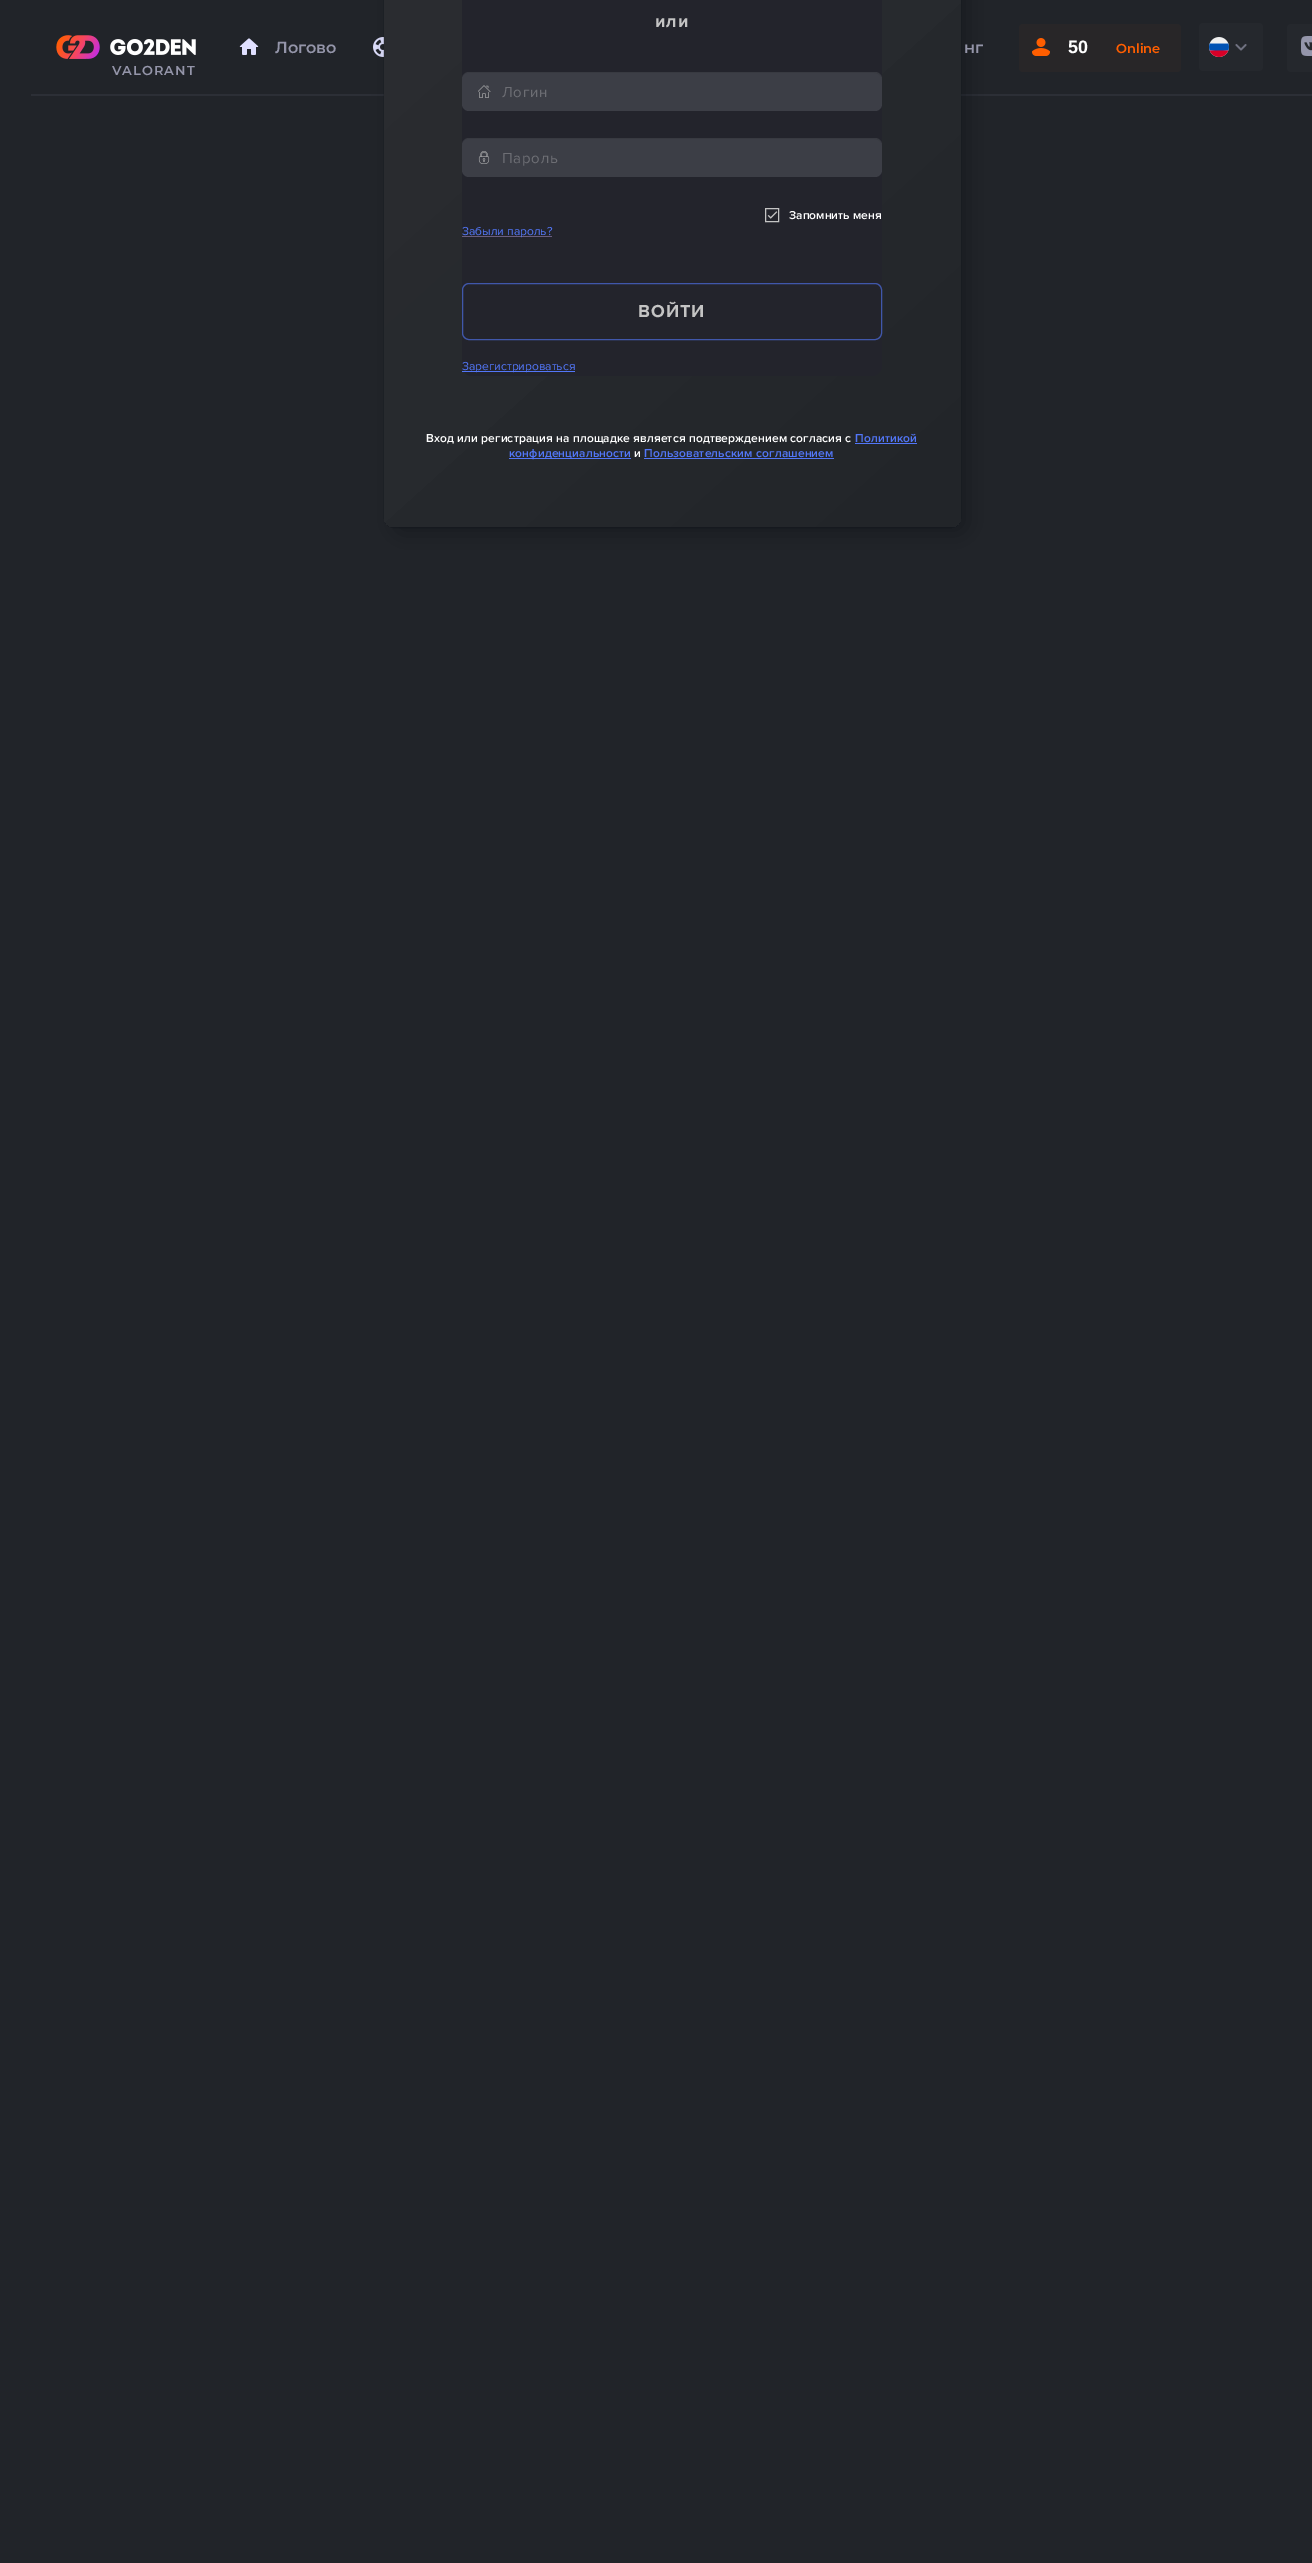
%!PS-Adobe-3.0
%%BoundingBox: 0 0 1312 2563
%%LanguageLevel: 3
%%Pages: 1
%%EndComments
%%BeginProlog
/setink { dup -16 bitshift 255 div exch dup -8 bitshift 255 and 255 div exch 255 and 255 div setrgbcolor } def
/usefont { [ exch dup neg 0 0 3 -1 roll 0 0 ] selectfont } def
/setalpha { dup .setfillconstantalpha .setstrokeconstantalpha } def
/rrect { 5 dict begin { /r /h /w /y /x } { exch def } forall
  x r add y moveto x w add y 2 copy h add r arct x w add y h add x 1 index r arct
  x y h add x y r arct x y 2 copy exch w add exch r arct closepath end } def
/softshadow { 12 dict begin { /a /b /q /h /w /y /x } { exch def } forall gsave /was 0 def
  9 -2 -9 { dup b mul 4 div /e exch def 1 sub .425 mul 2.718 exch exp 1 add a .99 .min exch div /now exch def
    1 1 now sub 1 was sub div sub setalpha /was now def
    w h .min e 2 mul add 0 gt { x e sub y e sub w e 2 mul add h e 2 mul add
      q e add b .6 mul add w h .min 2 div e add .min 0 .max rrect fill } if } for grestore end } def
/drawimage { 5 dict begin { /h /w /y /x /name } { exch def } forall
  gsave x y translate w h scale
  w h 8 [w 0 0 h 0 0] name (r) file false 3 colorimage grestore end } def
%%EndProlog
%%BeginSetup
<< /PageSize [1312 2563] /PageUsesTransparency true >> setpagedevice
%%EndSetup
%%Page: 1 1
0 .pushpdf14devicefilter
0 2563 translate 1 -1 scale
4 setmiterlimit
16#212429 setink
0 0 1312 2563 rectfill
16#2C2F36 setink
31 94 1281 2 rectfill
(img5.raw) 373 37 11 20 drawimage
16#090E14 setink
384 -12 577 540 10 0.5 0.4 softshadow
392 -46 577 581 10 12 0.4 softshadow
gsave 384 0 moveto 961 0 lineto 961 517 lineto 961 522.5 956.5 527 951 527 curveto 394 527 lineto 388.5 527 384 522.5 384 517 curveto closepath clip newpath
<< /ShadingType 2 /ColorSpace /DeviceRGB /Coords [359 -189 985 505] /Extend [true true] /Function << /FunctionType 3 /Domain [0 1] /Functions [<< /FunctionType 2 /Domain [0 1] /C0 [0.176 0.184 0.2] /C1 [0.176 0.184 0.2] /N 1 >> << /FunctionType 2 /Domain [0 1] /C0 [0.176 0.184 0.2] /C1 [0.153 0.165 0.18] /N 1 >> << /FunctionType 2 /Domain [0 1] /C0 [0.153 0.165 0.18] /C1 [0.133 0.145 0.161] /N 1 >>] /Bounds [0.01 0.52] /Encode [0 1 0 1 0 1] >> >> shfill grestore
16#23242C setink
462 0 moveto 882 0 lineto 882 366 lineto 882 371.5 877.5 376 872 376 curveto 472 376 lineto 466.5 376 462 371.5 462 366 curveto closepath fill
/ProximaNova-Bold 18 usefont
16#C4C4C4 setink
655 27 moveto 1 0 (или) ashow
16#3C3E46 setink
462 72 420 39 7 rrect fill
(img1.raw) 478 85 13 13 drawimage
0.07 setalpha
16#000000 setink
468 73 moveto 874 73 lineto 878 73 882 76 882 80 curveto 882 76 880 72 875 72 curveto 469 72 lineto 464 72 462 76 462 80 curveto 462 76 465 73 468 73 curveto closepath fill
/ProximaNova-Regular 15 usefont
1 setalpha
16#6D6E74 setink
502 97 moveto 0.75 0 (Логин) ashow
16#3C3E46 setink
462 138 420 39 7 rrect fill
(img2.raw) 478 151 12 13 drawimage
0.07 setalpha
16#000000 setink
468 139 moveto 874 139 lineto 878 139 882 142 882 146 curveto 882 142 880 138 875 138 curveto 469 138 lineto 464 138 462 142 462 146 curveto 462 142 465 139 468 139 curveto closepath fill
1 setalpha
16#6D6E74 setink
502 163 moveto 0.75 0 (Пароль) ashow
(img3.raw) 767 211 11 8 drawimage
16#C4C4C4 setink
765.5 208.5 13 13 rectstroke
/ProximaNova-SemiBold 12 usefont
16#FFFFFF setink
789 219 moveto (Запомнить меня) show
16#6B5E80 setink
462 236 90 1 rectfill
/ProximaNova-Regular 12 usefont
16#5276F8 setink
462 235 moveto (Забыли пароль?) show
16#4057AB setink
462.5 283.5 419 56 6.5 rrect stroke
/ProximaNova-Bold 18 usefont
16#C4C4C4 setink
638 317 moveto 1 0 (ВОЙТИ) ashow
16#5276F8 setink
462 371 113 1 rectfill
/ProximaNova-Regular 12 usefont
462 370 moveto (Зарегистрироваться) show
/ProximaNova-SemiBold 12 usefont
16#FFFFFF setink
426 442 moveto 0.12 0 (Вход или регистрация на площадке является подтверждением согласия c) ashow
16#5276F8 setink
855 442 moveto 0.12 0 (Политикой) ashow
855 443 62 1 rectfill
509 458 122 1 rectfill
509 457 moveto 0.12 0 (конфиденциальности) ashow
16#FFFFFF setink
634 457 moveto 0.12 0 (и) ashow
16#5276F8 setink
644 457 moveto 0.12 0 (Пользовательским соглашением) ashow
644 458 190 1 rectfill
(img4.raw) 239 38 20 17 drawimage
/Montserrat-SemiBold 16 usefont
16#9495A9 setink
275 53 moveto (Логово) show
964 53 moveto (нг) show
16#282628 setink
1019 24 162 48 4 rrect fill
(img6.raw) 1032 38 18 18 drawimage
/LiberationSans-Bold 18 usefont
16#FFFFFF setink
1068 53 moveto (50) show
/Montserrat-SemiBold 13 usefont
16#FF5E00 setink
1116 53 moveto (Online) show
16#25282D setink
1199 23 64 48 4 rrect fill
(img7.raw) 1209 37 20 20 drawimage
(img8.raw) 1235 44 12 7 drawimage
1287 24 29 48 4 rrect fill
(img9.raw) 1301 36 11 20 drawimage
(img10.raw) 56 35 140 24 drawimage
16#9495A9 setink
112 75 moveto 1 0 (VALORANT) ashow
.poppdf14devicefilter showpage
%%EOF
